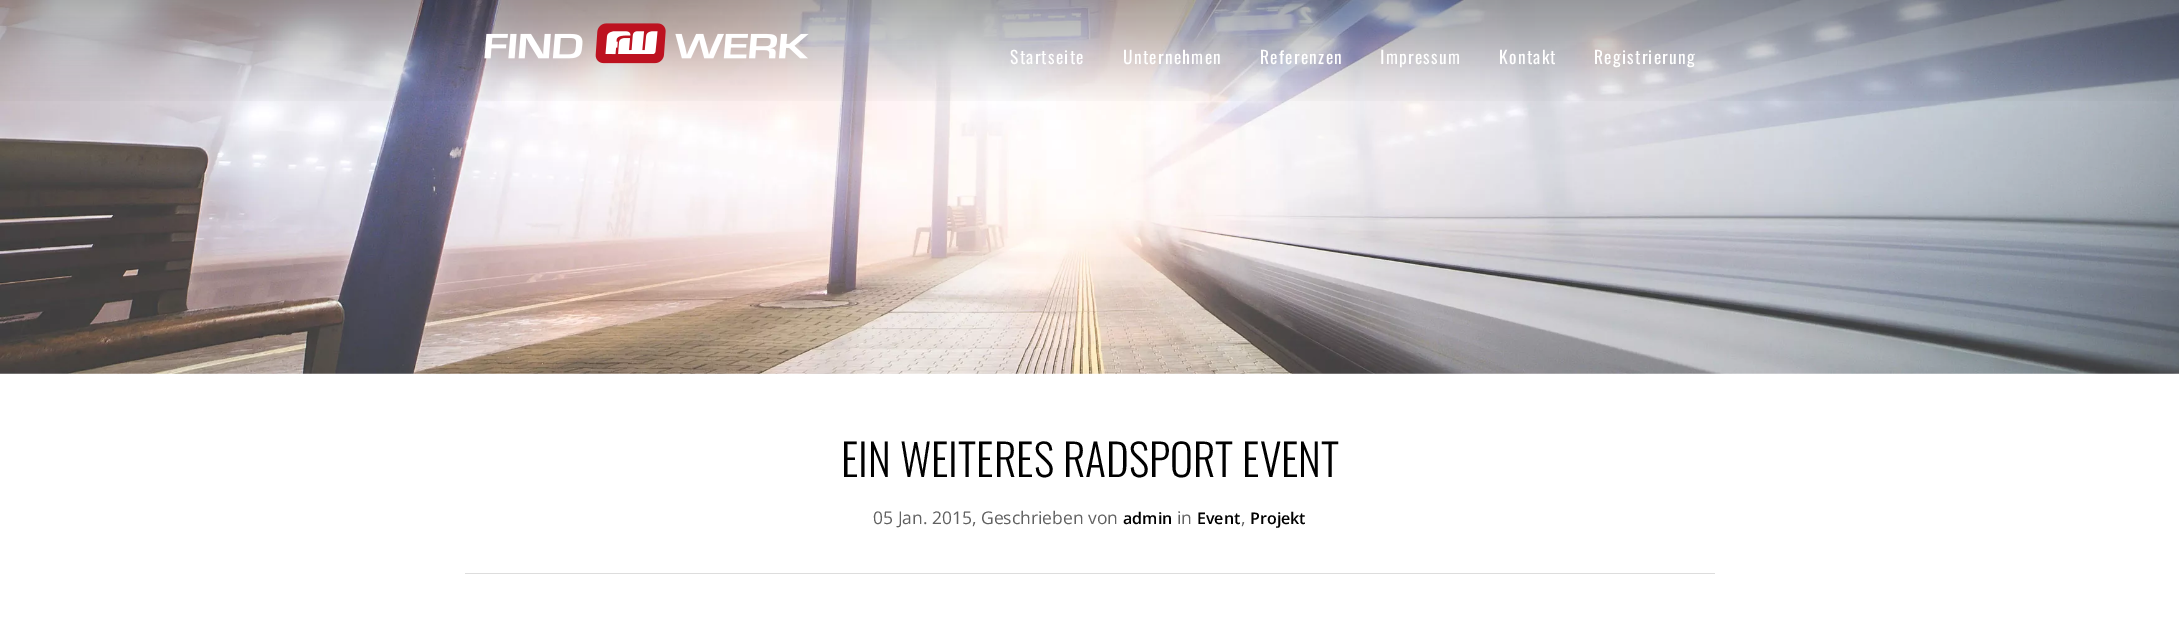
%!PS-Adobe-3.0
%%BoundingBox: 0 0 2179 638
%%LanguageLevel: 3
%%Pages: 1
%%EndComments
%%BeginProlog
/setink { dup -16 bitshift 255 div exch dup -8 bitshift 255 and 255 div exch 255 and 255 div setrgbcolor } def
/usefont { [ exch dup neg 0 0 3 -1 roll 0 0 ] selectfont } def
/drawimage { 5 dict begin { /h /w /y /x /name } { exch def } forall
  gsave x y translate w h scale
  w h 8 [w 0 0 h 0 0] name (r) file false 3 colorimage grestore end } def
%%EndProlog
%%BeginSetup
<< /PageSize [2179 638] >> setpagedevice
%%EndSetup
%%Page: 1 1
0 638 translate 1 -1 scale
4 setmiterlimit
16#FFFFFF setink
0 0 2179 638 rectfill
(img3.raw) 0 0 2179 374 drawimage
(img1.raw) 0 0 2179 101 drawimage
(img2.raw) 484 23 325 41 drawimage
/Oswald-Regular 17.5 usefont
1010 64 moveto 1.25 0 (Startseite) ashow
1123 64 moveto 1.25 0 (Unternehmen) ashow
1260 64 moveto 1.25 0 (Referenzen) ashow
1380 64 moveto 1.25 0 (Impressum) ashow
1499 64 moveto 1.25 0 (Kontakt) ashow
1594 64 moveto 1.25 0 (Registrierung) ashow
/Oswald-Light 43.75 usefont
16#000000 setink
841 477 moveto (EIN WEITERES RADSPORT EVENT) show
16#DDDDDD setink
465 573 1250 1 rectfill
/OpenSans-Regular 17.5 usefont
16#616161 setink
873 524 moveto (05 Jan. 2015, Geschrieben von) show
/OpenSans-SemiBold 16 usefont
16#000000 setink
1123 524 moveto (admin) show
/OpenSans-Regular 17.5 usefont
16#616161 setink
1177 524 moveto (in) show
/OpenSans-SemiBold 16 usefont
16#000000 setink
1197 524 moveto (Event) show
/OpenSans-Regular 17.5 usefont
16#616161 setink
1241 524 moveto (,) show
/OpenSans-SemiBold 16 usefont
16#000000 setink
1250 524 moveto (Projekt) show
showpage
%%EOF
